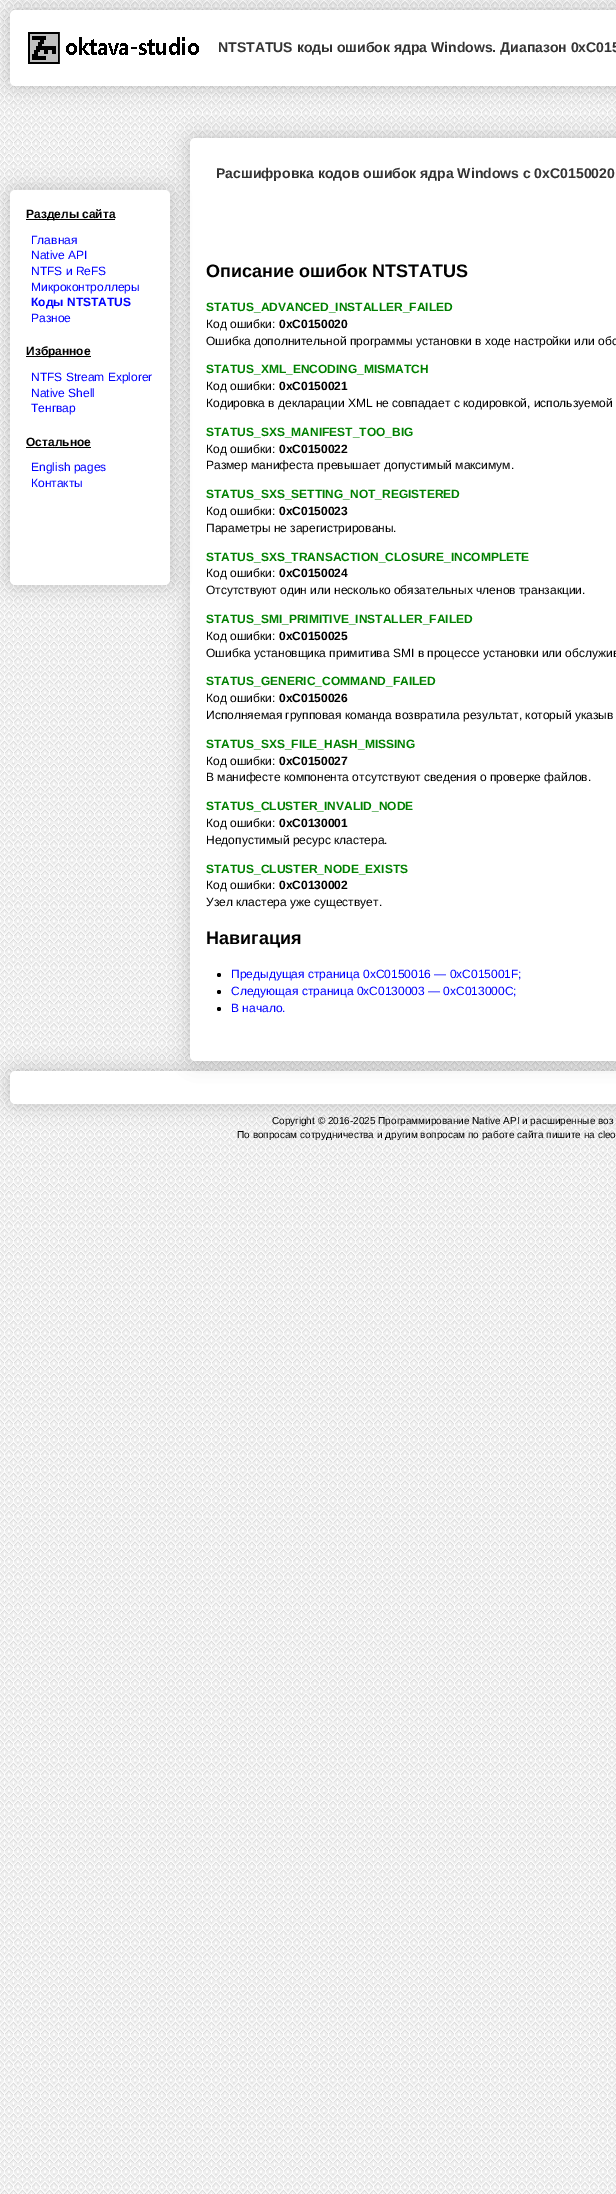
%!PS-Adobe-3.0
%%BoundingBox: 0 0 616 2194
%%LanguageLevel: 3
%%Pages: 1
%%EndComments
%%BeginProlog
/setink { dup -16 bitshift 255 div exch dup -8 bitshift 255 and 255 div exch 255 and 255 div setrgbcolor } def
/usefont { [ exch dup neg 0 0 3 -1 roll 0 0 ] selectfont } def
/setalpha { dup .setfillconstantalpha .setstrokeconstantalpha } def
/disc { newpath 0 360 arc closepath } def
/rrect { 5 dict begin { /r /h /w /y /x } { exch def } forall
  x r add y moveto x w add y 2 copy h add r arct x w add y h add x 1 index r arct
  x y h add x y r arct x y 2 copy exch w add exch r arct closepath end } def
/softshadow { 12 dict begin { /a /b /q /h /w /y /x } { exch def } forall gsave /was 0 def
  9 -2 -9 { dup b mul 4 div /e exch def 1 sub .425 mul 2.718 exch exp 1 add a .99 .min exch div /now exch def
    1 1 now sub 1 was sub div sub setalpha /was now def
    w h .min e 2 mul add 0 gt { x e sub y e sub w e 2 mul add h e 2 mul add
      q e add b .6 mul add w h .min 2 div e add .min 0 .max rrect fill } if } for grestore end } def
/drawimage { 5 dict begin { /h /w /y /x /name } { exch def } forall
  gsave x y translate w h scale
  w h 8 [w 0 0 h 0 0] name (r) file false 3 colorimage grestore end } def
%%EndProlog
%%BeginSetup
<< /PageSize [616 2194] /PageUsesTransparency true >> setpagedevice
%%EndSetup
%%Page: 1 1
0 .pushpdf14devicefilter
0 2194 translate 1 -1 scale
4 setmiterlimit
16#FFFFFF setink
0 0 616 2194 rectfill
(img1.raw) 0 0 616 2194 drawimage
16#000000 setink
10 10 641 76 5 10 0.2 softshadow
16#FFFFFF setink
10 10 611 76 5 rrect fill
(img2.raw) 28 32 171 32 drawimage
/LiberationSans-Bold 14 usefont
16#333333 setink
218 52 moveto (NTSTATUS коды ошибок ядра Windows. Диапазон 0xC015) show
16#000000 setink
10 1071 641 33 5 10 0.2 softshadow
16#FFFFFF setink
10 1071 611 33 5 rrect fill
16#000000 setink
190 138 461 923 5 10 0.2 softshadow
16#FFFFFF setink
190 138 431 923 5 rrect fill
16#000000 setink
10 190 160 395 5 10 0.2 softshadow
16#FFFFFF setink
10 190 160 395 5 rrect fill
16#000000 setink
26 219 89 1 rectfill
/LiberationSans-Bold 12 usefont
26 218 moveto (Разделы сайта) show
/LiberationSans-Regular 12 usefont
16#0000FF setink
[
    [(Главная) 31 244]
    [(Native API) 31 259]
    [(NTFS и ReFS) 31 275]
    [(Микроконтроллеры) 31 291]
] { aload pop moveto show } forall
/LiberationSans-Bold 12 usefont
31 306 moveto (Коды NTSTATUS) show
/LiberationSans-Regular 12 usefont
31 322 moveto (Разное) show
16#000000 setink
26 356 65 1 rectfill
/LiberationSans-Bold 12 usefont
26 355 moveto (Избранное) show
/LiberationSans-Regular 12 usefont
16#0000FF setink
[
    [(NTFS Stream Explorer) 31 381]
    [(Native Shell) 31 397]
    [(Тенгвар) 31 412]
] { aload pop moveto show } forall
/LiberationSans-Bold 12 usefont
16#000000 setink
26 446 moveto (Остальное) show
26 447 65 1 rectfill
/LiberationSans-Regular 12 usefont
16#0000FF setink
31 471 moveto (English pages) show
31 487 moveto (Контакты) show
/LiberationSans-Bold 14 usefont
16#333333 setink
216 178 moveto (Расшифровка кодов ошибок ядра Windows с 0xC0150020) show
/LiberationSans-Bold 18 usefont
16#000000 setink
206 277 moveto (Описание ошибок NTSTATUS) show
/LiberationSans-Bold 12 usefont
16#008000 setink
206 311 moveto (STATUS_ADVANCED_INSTALLER_FAILED) show
/LiberationSans-Regular 12 usefont
16#000000 setink
206 328 moveto (Код ошибки:) show
/LiberationSans-Bold 12 usefont
279 328 moveto (0xC0150020) show
/LiberationSans-Regular 12 usefont
206 345 moveto (Ошибка дополнительной программы установки в ходе настройки или обс) show
/LiberationSans-Bold 12 usefont
16#008000 setink
206 373 moveto (STATUS_XML_ENCODING_MISMATCH) show
/LiberationSans-Regular 12 usefont
16#000000 setink
206 390 moveto (Код ошибки:) show
/LiberationSans-Bold 12 usefont
279 390 moveto (0xC0150021) show
/LiberationSans-Regular 12 usefont
206 407 moveto (Кодировка в декларации XML не совпадает с кодировкой, используемой) show
/LiberationSans-Bold 12 usefont
16#008000 setink
206 436 moveto (STATUS_SXS_MANIFEST_TOO_BIG) show
/LiberationSans-Regular 12 usefont
16#000000 setink
206 453 moveto (Код ошибки:) show
/LiberationSans-Bold 12 usefont
279 453 moveto (0xC0150022) show
/LiberationSans-Regular 12 usefont
206 469 moveto (Размер манифеста превышает допустимый максимум.) show
/LiberationSans-Bold 12 usefont
16#008000 setink
206 498 moveto (STATUS_SXS_SETTING_NOT_REGISTERED) show
/LiberationSans-Regular 12 usefont
16#000000 setink
206 515 moveto (Код ошибки:) show
/LiberationSans-Bold 12 usefont
279 515 moveto (0xC0150023) show
/LiberationSans-Regular 12 usefont
206 532 moveto (Параметры не зарегистрированы.) show
/LiberationSans-Bold 12 usefont
16#008000 setink
206 561 moveto (STATUS_SXS_TRANSACTION_CLOSURE_INCOMPLETE) show
/LiberationSans-Regular 12 usefont
16#000000 setink
206 577 moveto (Код ошибки:) show
/LiberationSans-Bold 12 usefont
279 577 moveto (0xC0150024) show
/LiberationSans-Regular 12 usefont
206 594 moveto (Отсутствуют один или несколько обязательных членов транзакции.) show
/LiberationSans-Bold 12 usefont
16#008000 setink
206 623 moveto (STATUS_SMI_PRIMITIVE_INSTALLER_FAILED) show
/LiberationSans-Regular 12 usefont
16#000000 setink
206 640 moveto (Код ошибки:) show
/LiberationSans-Bold 12 usefont
279 640 moveto (0xC0150025) show
/LiberationSans-Regular 12 usefont
206 657 moveto (Ошибка установщика примитива SMI в процессе установки или обслужив) show
/LiberationSans-Bold 12 usefont
16#008000 setink
206 685 moveto (STATUS_GENERIC_COMMAND_FAILED) show
/LiberationSans-Regular 12 usefont
16#000000 setink
206 702 moveto (Код ошибки:) show
/LiberationSans-Bold 12 usefont
279 702 moveto (0xC0150026) show
/LiberationSans-Regular 12 usefont
206 719 moveto (Исполняемая групповая команда возвратила результат, который указыв) show
/LiberationSans-Bold 12 usefont
16#008000 setink
206 748 moveto (STATUS_SXS_FILE_HASH_MISSING) show
/LiberationSans-Regular 12 usefont
16#000000 setink
206 765 moveto (Код ошибки:) show
/LiberationSans-Bold 12 usefont
279 765 moveto (0xC0150027) show
/LiberationSans-Regular 12 usefont
206 781 moveto (В манифесте компонента отсутствуют сведения о проверке файлов.) show
/LiberationSans-Bold 12 usefont
16#008000 setink
206 810 moveto (STATUS_CLUSTER_INVALID_NODE) show
/LiberationSans-Regular 12 usefont
16#000000 setink
206 827 moveto (Код ошибки:) show
/LiberationSans-Bold 12 usefont
279 827 moveto (0xC0130001) show
/LiberationSans-Regular 12 usefont
206 844 moveto (Недопустимый ресурс кластера.) show
/LiberationSans-Bold 12 usefont
16#008000 setink
206 873 moveto (STATUS_CLUSTER_NODE_EXISTS) show
/LiberationSans-Regular 12 usefont
16#000000 setink
206 889 moveto (Код ошибки:) show
/LiberationSans-Bold 12 usefont
279 889 moveto (0xC0130002) show
/LiberationSans-Regular 12 usefont
206 906 moveto (Узел кластера уже существует.) show
/LiberationSans-Bold 18 usefont
206 944 moveto (Навигация) show
219 975 2 disc fill
/LiberationSans-Regular 12 usefont
16#0000FF setink
231 978 moveto (Предыдущая страница 0xC0150016 — 0xC015001F;) show
16#000000 setink
219 992 2 disc fill
16#0000FF setink
231 995 moveto (Следующая страница 0xC0130003 — 0xC013000C;) show
16#000000 setink
219 1009 2 disc fill
16#0000FF setink
231 1012 moveto (В начало.) show
/LiberationSans-Regular 10 usefont
16#000000 setink
272 1124 moveto (Copyright © 2016-2025 Программирование Native API и расширенные воз) show
237 1138 moveto (По вопросам сотрудничества и другим вопросам по работе сайта пишите на cleo) show
.poppdf14devicefilter showpage
%%EOF
